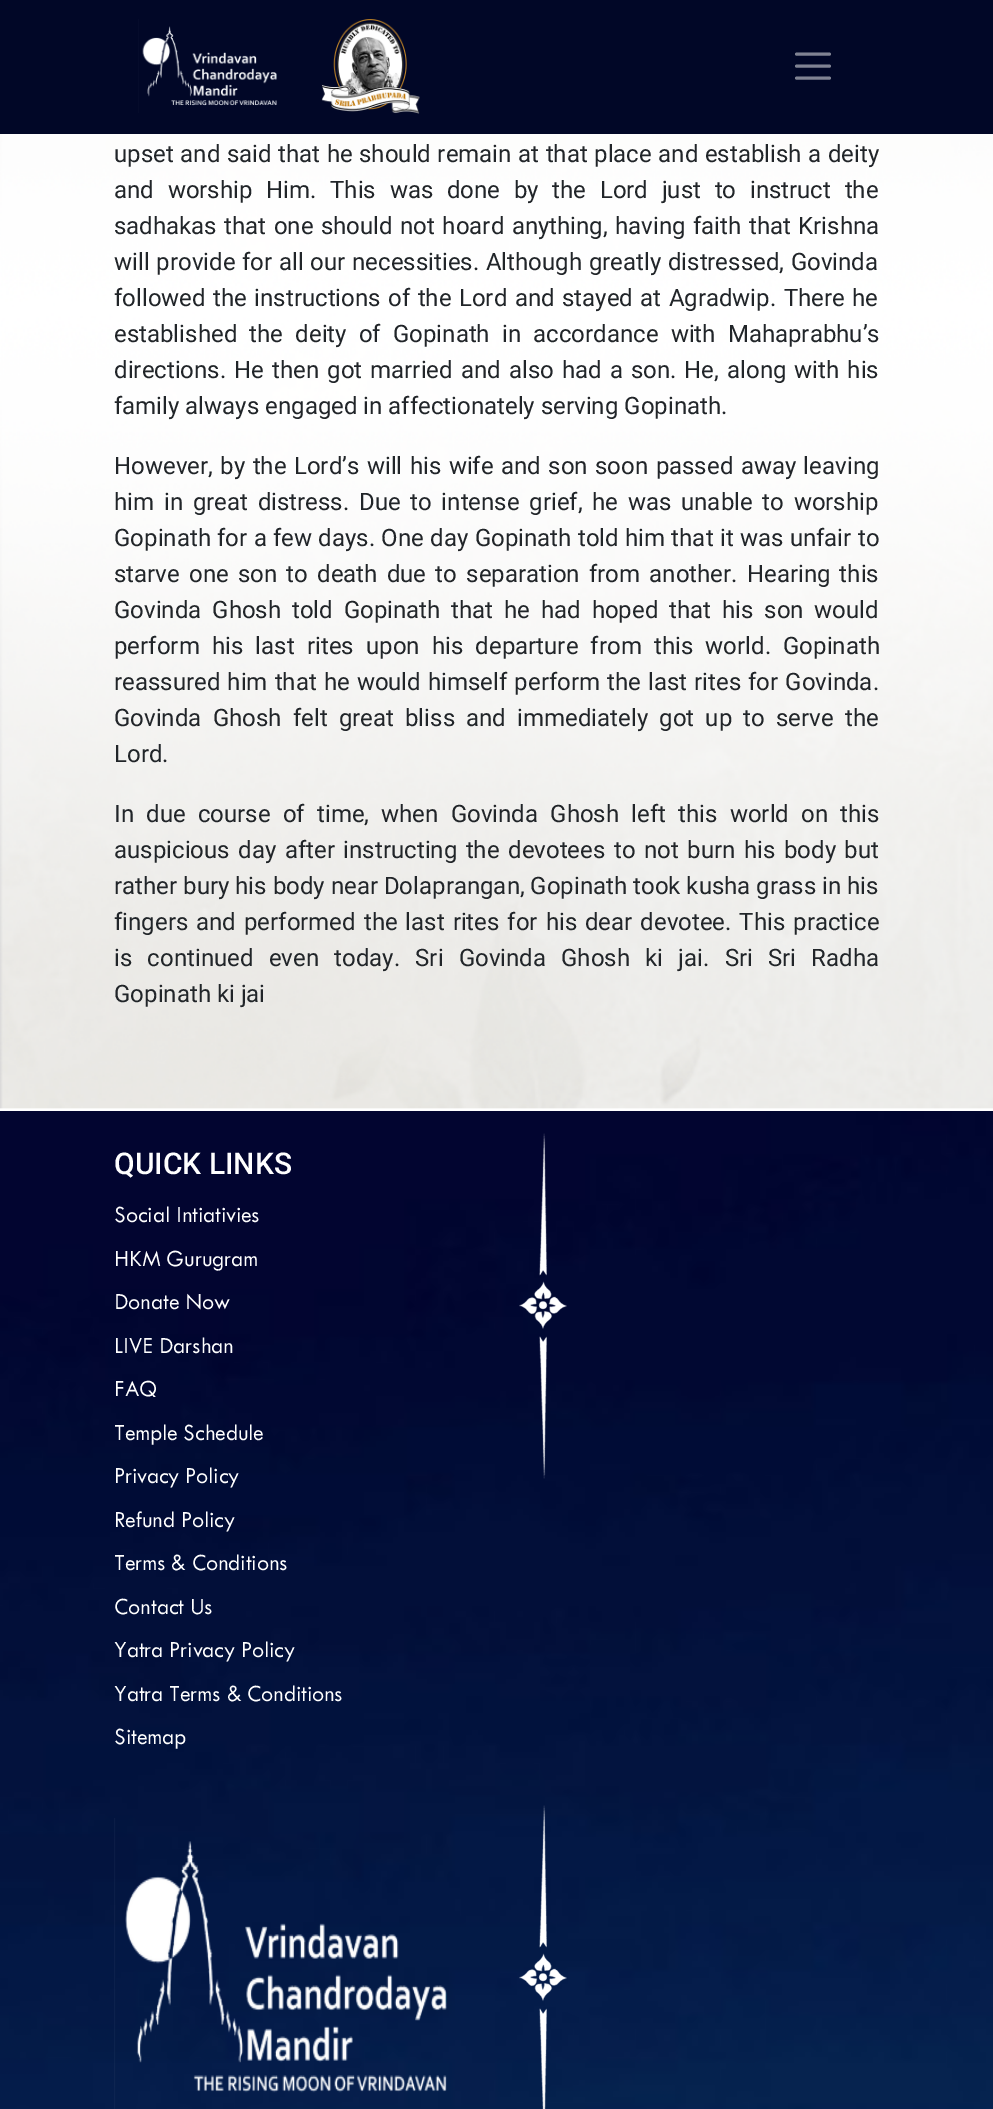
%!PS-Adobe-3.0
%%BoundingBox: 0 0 993 2109
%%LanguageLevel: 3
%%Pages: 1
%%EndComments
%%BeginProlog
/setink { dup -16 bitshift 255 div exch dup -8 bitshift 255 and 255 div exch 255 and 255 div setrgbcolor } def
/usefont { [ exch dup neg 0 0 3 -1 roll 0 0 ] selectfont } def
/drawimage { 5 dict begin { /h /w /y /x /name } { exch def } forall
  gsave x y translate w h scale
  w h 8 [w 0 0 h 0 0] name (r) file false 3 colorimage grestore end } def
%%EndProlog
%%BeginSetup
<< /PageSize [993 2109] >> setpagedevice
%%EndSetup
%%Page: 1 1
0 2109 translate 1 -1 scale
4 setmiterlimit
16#FFFFFF setink
0 0 993 2109 rectfill
16#010727 setink
0 0 993 134 rectfill
(img1.raw) 138 19 139 94 drawimage
(img2.raw) 321 19 99 95 drawimage
16#808393 setink
3 setlinewidth
1 setlinecap
796.5 54 moveto 829.5 54 lineto 796.5 66 moveto 829.5 66 lineto 796.5 78 moveto 829.5 78 lineto stroke
(img3.raw) 0 134 993 975 drawimage
/Roboto-Regular 24 usefont
16#212529 setink
114 162 moveto 0.6 0 32 (upset and said that he should remain at that place and establish a deity) widthshow
114 198 moveto 7.75 0 32 (and worship Him. This was done by the Lord just to instruct the) widthshow
114 234 moveto 1.5 0 32 (sadhakas that one should not hoard anything, having faith that Krishna) widthshow
114 270 moveto 0.75 0 32 (will provide for all our necessities. Although greatly distressed, Govinda) widthshow
114 306 moveto 1.5 0 32 (followed the instructions of the Lord and stayed at Agradwip. There he) widthshow
114 342 moveto 6.25 0 32 (established the deity of Gopinath in accordance with Mahaprabhu’s) widthshow
114 378 moveto 2.1 0 32 (directions. He then got married and also had a son. He, along with his) widthshow
114 414 moveto (family always engaged in affectionately serving Gopinath.) show
114 474 moveto 1.5 0 32 (However, by the Lord’s will his wife and son soon passed away leaving) widthshow
114 510 moveto 3.75 0 32 (him in great distress. Due to intense grief, he was unable to worship) widthshow
114 546 moveto 0.4 0 32 (Gopinath for a few days. One day Gopinath told him that it was unfair to) widthshow
114 582 moveto 3.25 0 32 (starve one son to death due to separation from another. Hearing this) widthshow
114 618 moveto 4.9 0 32 (Govinda Ghosh told Gopinath that he had hoped that his son would) widthshow
114 654 moveto 6.25 0 32 (perform his last rites upon his departure from this world. Gopinath) widthshow
114 690 moveto 1.1 0 32 (reassured him that he would himself perform the last rites for Govinda.) widthshow
114 726 moveto 5.25 0 32 (Govinda Ghosh felt great bliss and immediately got up to serve the) widthshow
114 762 moveto (Lord.) show
114 822 moveto 6.25 0 32 (In due course of time, when Govinda Ghosh left this world on this) widthshow
114 858 moveto 2.6 0 32 (auspicious day after instructing the devotees to not burn his body but) widthshow
114 894 moveto (rather bury his body near Dolaprangan, Gopinath took kusha grass in his) show
114 930 moveto 2 0 32 (fingers and performed the last rites for his dear devotee. This practice) widthshow
114 966 moveto 9.25 0 32 (is continued even today. Sri Govinda Ghosh ki jai. Sri Sri Radha) widthshow
114 1002 moveto (Gopinath ki jai) show
(img4.raw) 0 1111 993 998 drawimage
/Roboto-Medium 30 usefont
16#FFFFFF setink
114 1174 moveto (QUICK LINKS) show
/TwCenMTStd-Medium 24 usefont
[
    [(Social Intiativies) 114 1222]
    [(HKM Gurugram) 114 1266]
    [(Donate Now) 114 1309]
    [(LIVE Darshan) 114 1353]
    [(FAQ) 114 1396]
    [(Temple Schedule) 114 1440]
    [(Privacy Policy) 114 1483]
    [(Refund Policy) 114 1527]
    [(Terms & Conditions) 114 1570]
    [(Contact Us) 114 1614]
    [(Yatra Privacy Policy) 114 1657]
    [(Yatra Terms & Conditions) 114 1701]
    [(Sitemap) 114 1744]
] { aload pop moveto show } forall
(img5.raw) 519 1133 48 346 drawimage
(img6.raw) 114 1818 333 291 drawimage
(img7.raw) 519 1805 48 304 drawimage
showpage
%%EOF
